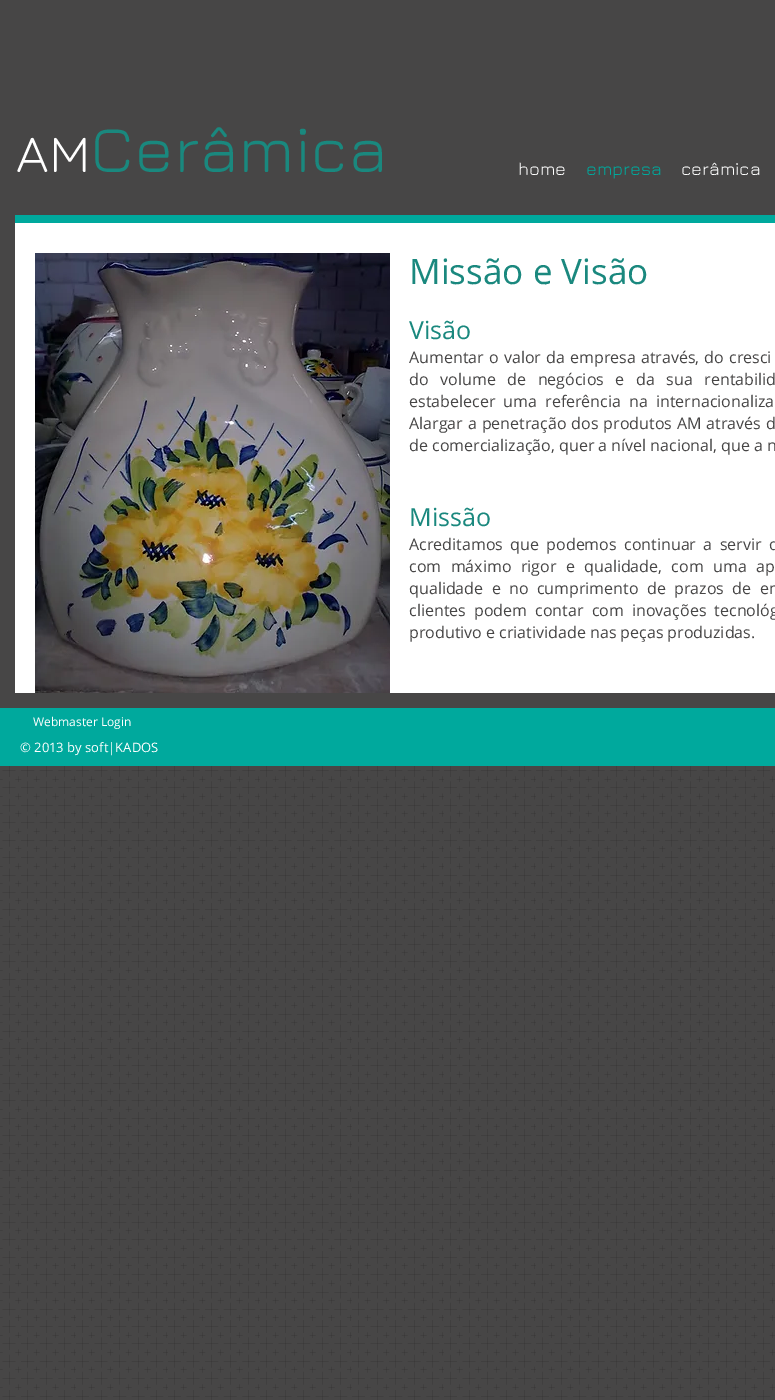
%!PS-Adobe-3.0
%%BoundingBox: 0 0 775 1400
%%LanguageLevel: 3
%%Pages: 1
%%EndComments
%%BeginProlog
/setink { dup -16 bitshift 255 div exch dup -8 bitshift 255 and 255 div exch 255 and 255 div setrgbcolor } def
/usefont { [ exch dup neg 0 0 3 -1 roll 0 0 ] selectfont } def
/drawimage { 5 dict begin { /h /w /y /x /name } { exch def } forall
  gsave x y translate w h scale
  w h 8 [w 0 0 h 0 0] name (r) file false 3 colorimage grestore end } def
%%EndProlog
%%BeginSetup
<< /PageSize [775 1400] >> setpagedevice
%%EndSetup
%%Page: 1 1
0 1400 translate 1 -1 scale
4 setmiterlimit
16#474646 setink
0 0 775 1400 rectfill
/Jura-Regular 53 usefont
16#FFFFFF setink
16 172 moveto (AM) show
/Jura-Regular 66 usefont
16#1A887E setink
90 172 moveto (Cerâmica) show
/Jura-Regular 18 usefont
16#FFFFFF setink
518 175 moveto (home) show
16#00A99D setink
586 175 moveto (empresa) show
16#FFFFFF setink
681 175 moveto (cerâmica) show
16#00A99D setink
15 215 760 8 rectfill
16#FFFFFF setink
15 223 760 470 rectfill
(img1.raw) 35 253 355 440 drawimage
/OpenSans-Regular 35 usefont
16#1A887E setink
409 284 moveto (Missão e Visão) show
/OpenSans-Regular 25 usefont
409 339 moveto (Visão) show
/OpenSans-Regular 16 usefont
16#474646 setink
409 363 moveto 1 0 32 (Aumentar o valor da empresa através, do cresci) widthshow
409 385 moveto 7.5 0 32 (do volume de negócios e da sua rentabilid) widthshow
409 407 moveto 4 0 32 (estabelecer uma referência na internacionaliza) widthshow
409 429 moveto 0.75 0 32 (Alargar a penetração dos produtos AM através d) widthshow
409 451 moveto (de comercialização, quer a nível nacional, que a n) show
/OpenSans-Regular 25 usefont
16#1A887E setink
409 526 moveto (Missão) show
/OpenSans-Regular 16 usefont
16#474646 setink
409 550 moveto 3.25 0 32 (Acreditamos que podemos continuar a servir o) widthshow
409 572 moveto 5.25 0 32 (com máximo rigor e qualidade, com uma ap) widthshow
409 594 moveto 4.25 0 32 (qualidade e no cumprimento de prazos de en) widthshow
409 616 moveto 4 0 32 (clientes podem contar com inovações tecnológ) widthshow
409 638 moveto (produtivo e criatividade nas peças produzidas.) show
16#00A99D setink
0 708 775 58 rectfill
/OpenSans-Regular 12 usefont
16#FFFFFF setink
33 726 moveto (Webmaster Login) show
/OpenSans-Regular 13 usefont
20 752 moveto (© 2013 by soft|KADOS) show
(img2.raw) 0 766 775 634 drawimage
showpage
%%EOF
